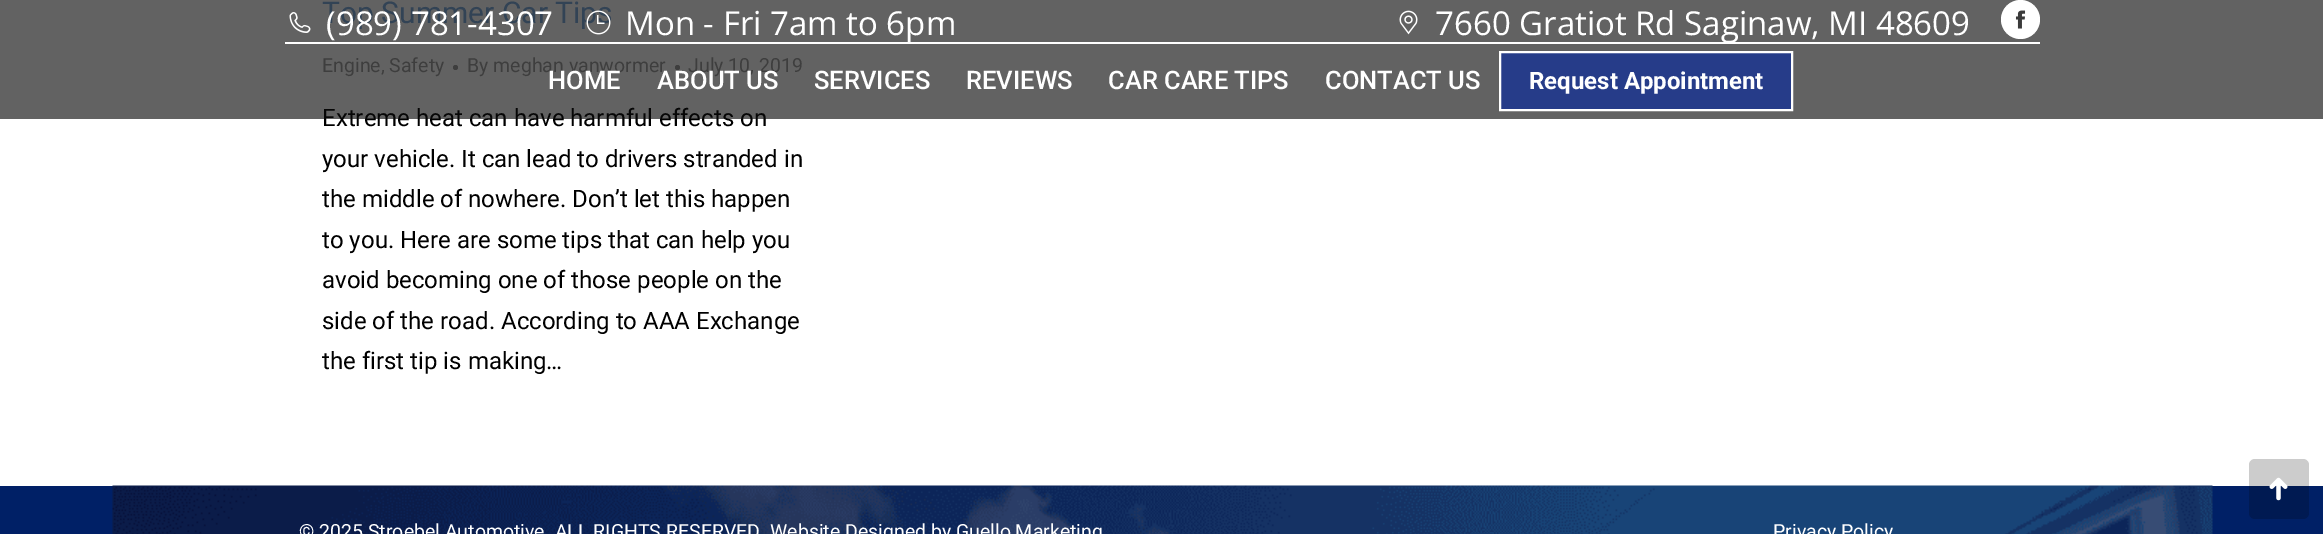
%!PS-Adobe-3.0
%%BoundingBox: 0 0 2323 534
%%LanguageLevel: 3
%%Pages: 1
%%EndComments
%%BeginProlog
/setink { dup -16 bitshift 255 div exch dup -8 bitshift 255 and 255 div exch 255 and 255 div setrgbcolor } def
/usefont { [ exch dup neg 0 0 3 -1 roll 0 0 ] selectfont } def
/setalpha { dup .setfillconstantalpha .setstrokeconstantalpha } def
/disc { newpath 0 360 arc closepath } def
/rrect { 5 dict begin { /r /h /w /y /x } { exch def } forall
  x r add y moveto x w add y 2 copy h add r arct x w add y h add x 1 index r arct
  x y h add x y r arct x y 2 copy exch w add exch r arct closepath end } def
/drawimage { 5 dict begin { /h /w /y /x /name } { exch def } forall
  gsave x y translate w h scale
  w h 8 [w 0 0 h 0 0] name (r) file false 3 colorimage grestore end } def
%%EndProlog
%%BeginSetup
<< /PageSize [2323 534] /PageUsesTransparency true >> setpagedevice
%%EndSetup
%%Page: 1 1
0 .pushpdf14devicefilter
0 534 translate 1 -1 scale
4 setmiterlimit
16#FFFFFF setink
0 0 2323 534 rectfill
/Roboto-Regular 30 usefont
16#7AA8DA setink
322 23 moveto (Top Summer Car Tips) show
/Roboto-Regular 19.5 usefont
16#999999 setink
322 72 moveto (Engine, Safety) show
455.5 67.5 2.5 disc fill
467 72 moveto (By meghan vanwormer) show
677.5 67.5 2.5 disc fill
688 72 moveto (July 10, 2019) show
/Roboto-Regular 24 usefont
16#000000 setink
[
    [(Extreme heat can have harmful effects on) 322 126]
    [(your vehicle. It can lead to drivers stranded in) 322 167]
    [(the middle of nowhere. Don’t let this happen) 322 207]
    [(to you. Here are some tips that can help you) 322 248]
    [(avoid becoming one of those people on the) 322 288]
    [(side of the road. According to AAA Exchange) 322 329]
    [(the first tip is making…) 322 369]
] { aload pop moveto show } forall
16#002066 setink
0 486 2323 48 rectfill
0.2 setalpha
16#000000 setink
2249 459 60 60 6 rrect fill
1 setalpha
(img1.raw) 2269 477 19 24 drawimage
(img2.raw) 112 485 2101 49 drawimage
/Roboto-Regular 19.5 usefont
16#FFFFFF setink
299 538 moveto (© 2025 Stroebel Automotive. ALL RIGHTS RESERVED. Website Designed by Guello Marketing) show
1773 538 moveto (Privacy Policy) show
0.64 setalpha
16#0A0A0A setink
0 0 2323 119 rectfill
1 setalpha
(img3.raw) 289 12 22 21 drawimage
/OpenSans-Regular 33 usefont
16#FFFFFF setink
326 35 moveto (\(989\) 781-4307) show
(img4.raw) 586 10 25 25 drawimage
625 35 moveto (Mon - Fri 7am to 6pm) show
(img5.raw) 1399 10 19 25 drawimage
1435 35 moveto (7660 Gratiot Rd Saginaw, MI 48609) show
2020.5 19.5 19.5 disc fill
(img6.raw) 2015 10 11 19 drawimage
285 42 1755 2 rectfill
/Roboto-Medium 25.5 usefont
[
    [(HOME) 548 89]
    [(ABOUT US) 657 89]
    [(SERVICES) 814 89]
    [(REVIEWS) 966 89]
    [(CAR CARE TIPS) 1108 89]
    [(CONTACT US) 1325 89]
] { aload pop moveto show } forall
16#263C89 setink
1500 52 moveto 1792 52 lineto 1792 110 lineto 1500 110 lineto closepath gsave fill grestore
16#FFFFFF setink
2 setlinewidth
stroke
/Roboto-Bold 24 usefont
1529 89 moveto (Request Appointment) show
.poppdf14devicefilter showpage
%%EOF
